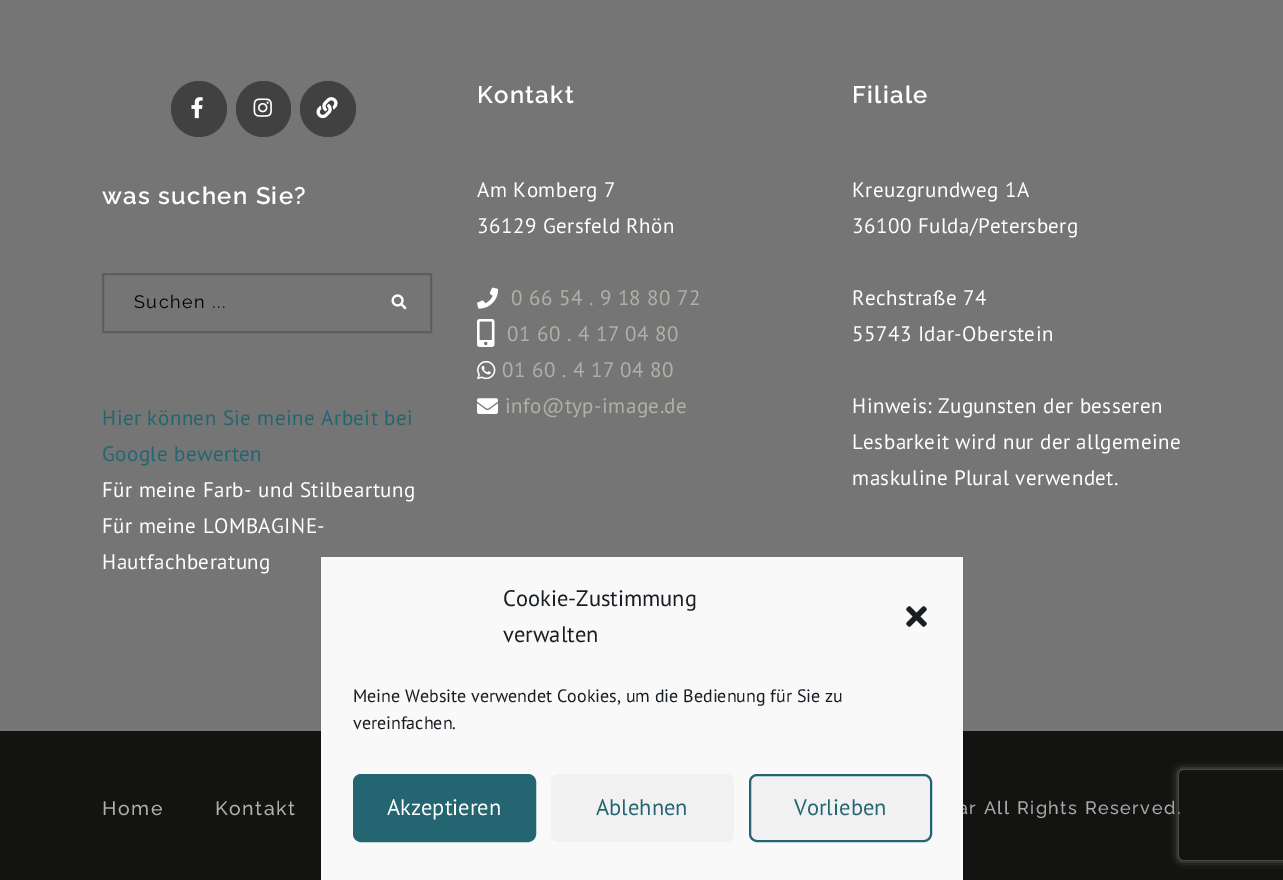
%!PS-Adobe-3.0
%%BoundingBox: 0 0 1283 880
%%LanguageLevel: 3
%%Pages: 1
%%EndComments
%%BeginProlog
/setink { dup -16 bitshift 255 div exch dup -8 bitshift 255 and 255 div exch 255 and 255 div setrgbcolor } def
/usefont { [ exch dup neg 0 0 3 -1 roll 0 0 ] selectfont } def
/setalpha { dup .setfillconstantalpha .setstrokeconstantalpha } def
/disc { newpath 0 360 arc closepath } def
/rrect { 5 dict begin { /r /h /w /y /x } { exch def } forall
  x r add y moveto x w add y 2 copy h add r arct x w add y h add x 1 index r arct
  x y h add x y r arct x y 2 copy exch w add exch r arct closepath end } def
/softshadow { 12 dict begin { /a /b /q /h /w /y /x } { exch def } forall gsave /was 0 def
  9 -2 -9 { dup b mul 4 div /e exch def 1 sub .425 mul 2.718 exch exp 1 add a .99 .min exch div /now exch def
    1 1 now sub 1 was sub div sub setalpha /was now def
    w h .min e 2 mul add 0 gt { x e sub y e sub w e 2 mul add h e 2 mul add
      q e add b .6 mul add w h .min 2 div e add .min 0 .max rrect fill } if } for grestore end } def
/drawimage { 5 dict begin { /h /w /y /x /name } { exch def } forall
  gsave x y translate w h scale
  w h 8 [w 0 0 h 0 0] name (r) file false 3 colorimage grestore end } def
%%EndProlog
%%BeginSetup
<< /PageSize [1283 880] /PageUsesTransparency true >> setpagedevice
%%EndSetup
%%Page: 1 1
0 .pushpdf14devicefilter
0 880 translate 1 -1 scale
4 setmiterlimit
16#757575 setink
0 0 1283 880 rectfill
16#414141 setink
199 109 28 disc fill
(img1.raw) 191 97 12 22 drawimage
236 81 55 56 27.5 rrect fill
(img2.raw) 253 98 19 19 drawimage
328 109 28 disc fill
(img3.raw) 316 97 22 22 drawimage
/Raleway-SemiBold 24 usefont
16#FFFFFF setink
102 204 moveto 1.25 0 (was suchen Sie?) ashow
16#5E5E5E setink
2 setlinewidth
103 274 328 58 rectstroke
/Raleway-Regular 18 usefont
16#000000 setink
134 308 moveto 1.5 0 (Suchen ...) ashow
(img4.raw) 391 294 16 16 drawimage
/PTSans-Regular 21 usefont
16#236672 setink
102 425 moveto 0.45 0 (Hier können Sie meine Arbeit bei) ashow
102 461 moveto 0.45 0 (Google bewerten) ashow
16#FFFFFF setink
102 497 moveto 0.45 0 (Für meine Farb- und Stilbeartung) ashow
102 533 moveto 0.45 0 (Für meine LOMBAGINE-) ashow
102 569 moveto 0.45 0 (Hautfachberatung) ashow
/Raleway-SemiBold 24 usefont
477 103 moveto 1.25 0 (Kontakt) ashow
/PTSans-Regular 21 usefont
477 197 moveto 0.45 0 (Am Komberg 7) ashow
477 233 moveto 0.45 0 (36129 Gersfeld Rhön) ashow
(img5.raw) 477 287 21 22 drawimage
16#B2AFA6 setink
511 305 moveto 0.45 0 (0 66 54 . 9 18 80 72) ashow
(img6.raw) 477 319 18 28 drawimage
507 341 moveto 0.45 0 (01 60 . 4 17 04 80) ashow
(img7.raw) 477 360 19 20 drawimage
502 377 moveto 0.45 0 (01 60 . 4 17 04 80) ashow
(img8.raw) 477 398 21 16 drawimage
505 413 moveto 0.45 0 (info@typ-image.de) ashow
/Raleway-SemiBold 24 usefont
16#FFFFFF setink
852 103 moveto 1.25 0 (Filiale) ashow
/PTSans-Regular 21 usefont
852 197 moveto 0.45 0 (Kreuzgrundweg 1A) ashow
852 233 moveto 0.45 0 (36100 Fulda/Petersberg) ashow
852 305 moveto 0.45 0 (Rechstraße 74) ashow
852 341 moveto 0.45 0 (55743 Idar-Oberstein) ashow
852 413 moveto 0.45 0 (Hinweis: Zugunsten der besseren) ashow
852 449 moveto 0.45 0 (Lesbarkeit wird nur der allgemeine) ashow
852 485 moveto 0.45 0 (maskuline Plural verwendet.) ashow
16#131312 setink
0 731 1283 149 rectfill
/Raleway-Medium 19.5 usefont
16#B2AFA6 setink
102 815 moveto 1.5 0 (Home) ashow
215 815 moveto 1.5 0 (Kontakt) ashow
/Raleway-Medium 18 usefont
16#AAAAAA setink
958 814 moveto 1.5 0 (ar All Rights Reserved.) ashow
16#F9F9F9 setink
321 557 642 323 rectfill
/PTSans-Regular 22.5 usefont
16#191E23 setink
503 606 moveto (Cookie-Zustimmung) show
503 642 moveto (verwalten) show
(img9.raw) 906 606 21 21 drawimage
/PTSans-Regular 18 usefont
353 702 moveto (Meine Website verwendet Cookies, um die Bedienung für Sie zu) show
353 729 moveto (vereinfachen.) show
16#236672 setink
354 775 181 66 7 rrect gsave fill grestore
stroke
/PTSans-Regular 22.5 usefont
16#FFFFFF setink
387 815 moveto (Akzeptieren) show
16#F1F1F1 setink
551 774 183 68 8 rrect fill
16#236672 setink
596 815 moveto (Ablehnen) show
16#F1F1F1 setink
750 775 181 66 7 rrect gsave fill grestore
16#236672 setink
stroke
794 815 moveto (Vorlieben) show
gsave
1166 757 moveto 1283 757 lineto 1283 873 lineto 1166 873 lineto closepath 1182 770 moveto 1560 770 lineto 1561.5 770 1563 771.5 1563 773 curveto 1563 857 lineto 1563 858.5 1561.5 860 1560 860 curveto 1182 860 lineto 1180.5 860 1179 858.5 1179 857 curveto 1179 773 lineto 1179 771.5 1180.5 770 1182 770 curveto closepath eoclip newpath
16#808080 setink
1179 770 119 90 3 4 1 softshadow
grestore
.poppdf14devicefilter showpage
%%EOF
